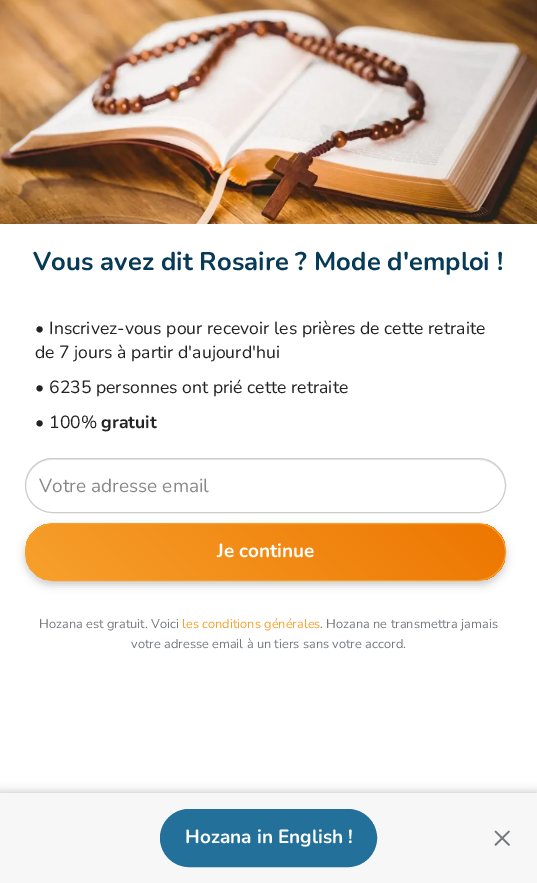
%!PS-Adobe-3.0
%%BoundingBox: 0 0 537 883
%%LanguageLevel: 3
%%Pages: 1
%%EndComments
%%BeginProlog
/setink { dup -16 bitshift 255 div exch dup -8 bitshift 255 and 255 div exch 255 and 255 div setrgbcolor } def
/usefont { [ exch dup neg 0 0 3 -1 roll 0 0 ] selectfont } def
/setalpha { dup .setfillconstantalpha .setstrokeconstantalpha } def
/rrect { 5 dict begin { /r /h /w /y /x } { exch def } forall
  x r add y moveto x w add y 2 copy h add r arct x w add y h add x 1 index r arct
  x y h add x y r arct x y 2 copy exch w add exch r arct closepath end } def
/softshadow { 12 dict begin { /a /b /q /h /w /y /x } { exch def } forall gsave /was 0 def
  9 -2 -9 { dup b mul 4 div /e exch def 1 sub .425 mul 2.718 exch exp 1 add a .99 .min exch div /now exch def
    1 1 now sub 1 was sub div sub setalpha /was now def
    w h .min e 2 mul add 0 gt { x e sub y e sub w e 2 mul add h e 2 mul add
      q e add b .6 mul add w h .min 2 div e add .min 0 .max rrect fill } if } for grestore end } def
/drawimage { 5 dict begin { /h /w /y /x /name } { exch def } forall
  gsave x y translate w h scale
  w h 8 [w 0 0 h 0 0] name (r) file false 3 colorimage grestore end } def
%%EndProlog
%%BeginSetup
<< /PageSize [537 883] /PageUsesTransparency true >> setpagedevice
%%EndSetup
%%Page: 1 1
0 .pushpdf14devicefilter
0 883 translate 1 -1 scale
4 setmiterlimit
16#FFFFFF setink
0 0 537 883 rectfill
(img1.raw) 0 0 537 224 drawimage
/Nunito-Bold 25.6 usefont
16#063A56 setink
33 270 moveto (Vous avez dit Rosaire ? Mode d'emploi !) show
/Nunito-Bold 17.6 usefont
16#222222 setink
35 334 moveto (•) show
/Nunito-Regular 17.6 usefont
49 334 moveto (Inscrivez-vous pour recevoir les prières de cette retraite) show
35 358 moveto (de 7 jours à partir d'aujourd'hui) show
/Nunito-Bold 17.6 usefont
35 393 moveto (•) show
/Nunito-Regular 17.6 usefont
49 393 moveto (6235 personnes ont prié cette retraite) show
/Nunito-Bold 17.6 usefont
35 428 moveto (•) show
/Nunito-Regular 17.6 usefont
49 428 moveto (100%) show
/Nunito-Bold 17.6 usefont
101 428 moveto (gratuit) show
16#ECECEC setink
52 460 moveto 478 460 lineto 493 460 505 472 505 486 curveto 505 471 493 459 478 459 curveto 52 459 lineto 38 459 26 471 26 486 curveto 26 472 38 460 52 460 curveto closepath fill
16#CCCCCC setink
25.5 458.5 480 54 27 rrect stroke
/Nunito-Regular 19 usefont
16#888888 setink
39 492 moveto (Votre adresse email) show
16#000000 setink
25 527 481 58 29 4 0.2 softshadow
gsave
25 523 481 58 29 rrect clip newpath
gsave 26 524 moveto 505 524 lineto 505 580 lineto 26 580 lineto closepath clip newpath
<< /ShadingType 2 /ColorSpace /DeviceRGB /Coords [132 686 399 418] /Extend [true true] /Function << /FunctionType 2 /Domain [0 1] /C0 [0.969 0.627 0.176] /C1 [0.929 0.463 0] /N 1 >> >> shfill grestore
grestore
16#F7A02D setink
25.5 523.5 480 57 28.5 rrect stroke
/Nunito-Bold 19 usefont
16#FFFFFF setink
217 557 moveto (Je continue) show
/Nunito-Regular 12.8 usefont
16#747A80 setink
39 628 moveto (Hozana est gratuit. Voici) show
16#F7A02D setink
182 628 moveto (les conditions générales) show
16#747A80 setink
320 628 moveto (. Hozana ne transmettra jamais) show
131 648 moveto (votre adresse email à un tiers sans votre accord.) show
16#000000 setink
0 793 537 90 0 5 0.25 softshadow
16#F7F7F7 setink
0 793 537 90 rectfill
16#23719B setink
160.5 809.5 216 57 28.5 rrect gsave fill grestore
stroke
/Nunito-Bold 19 usefont
16#FFFFFF setink
185 843 moveto (Hozana in English !) show
(img2.raw) 494 830 16 16 drawimage
.poppdf14devicefilter showpage
%%EOF
